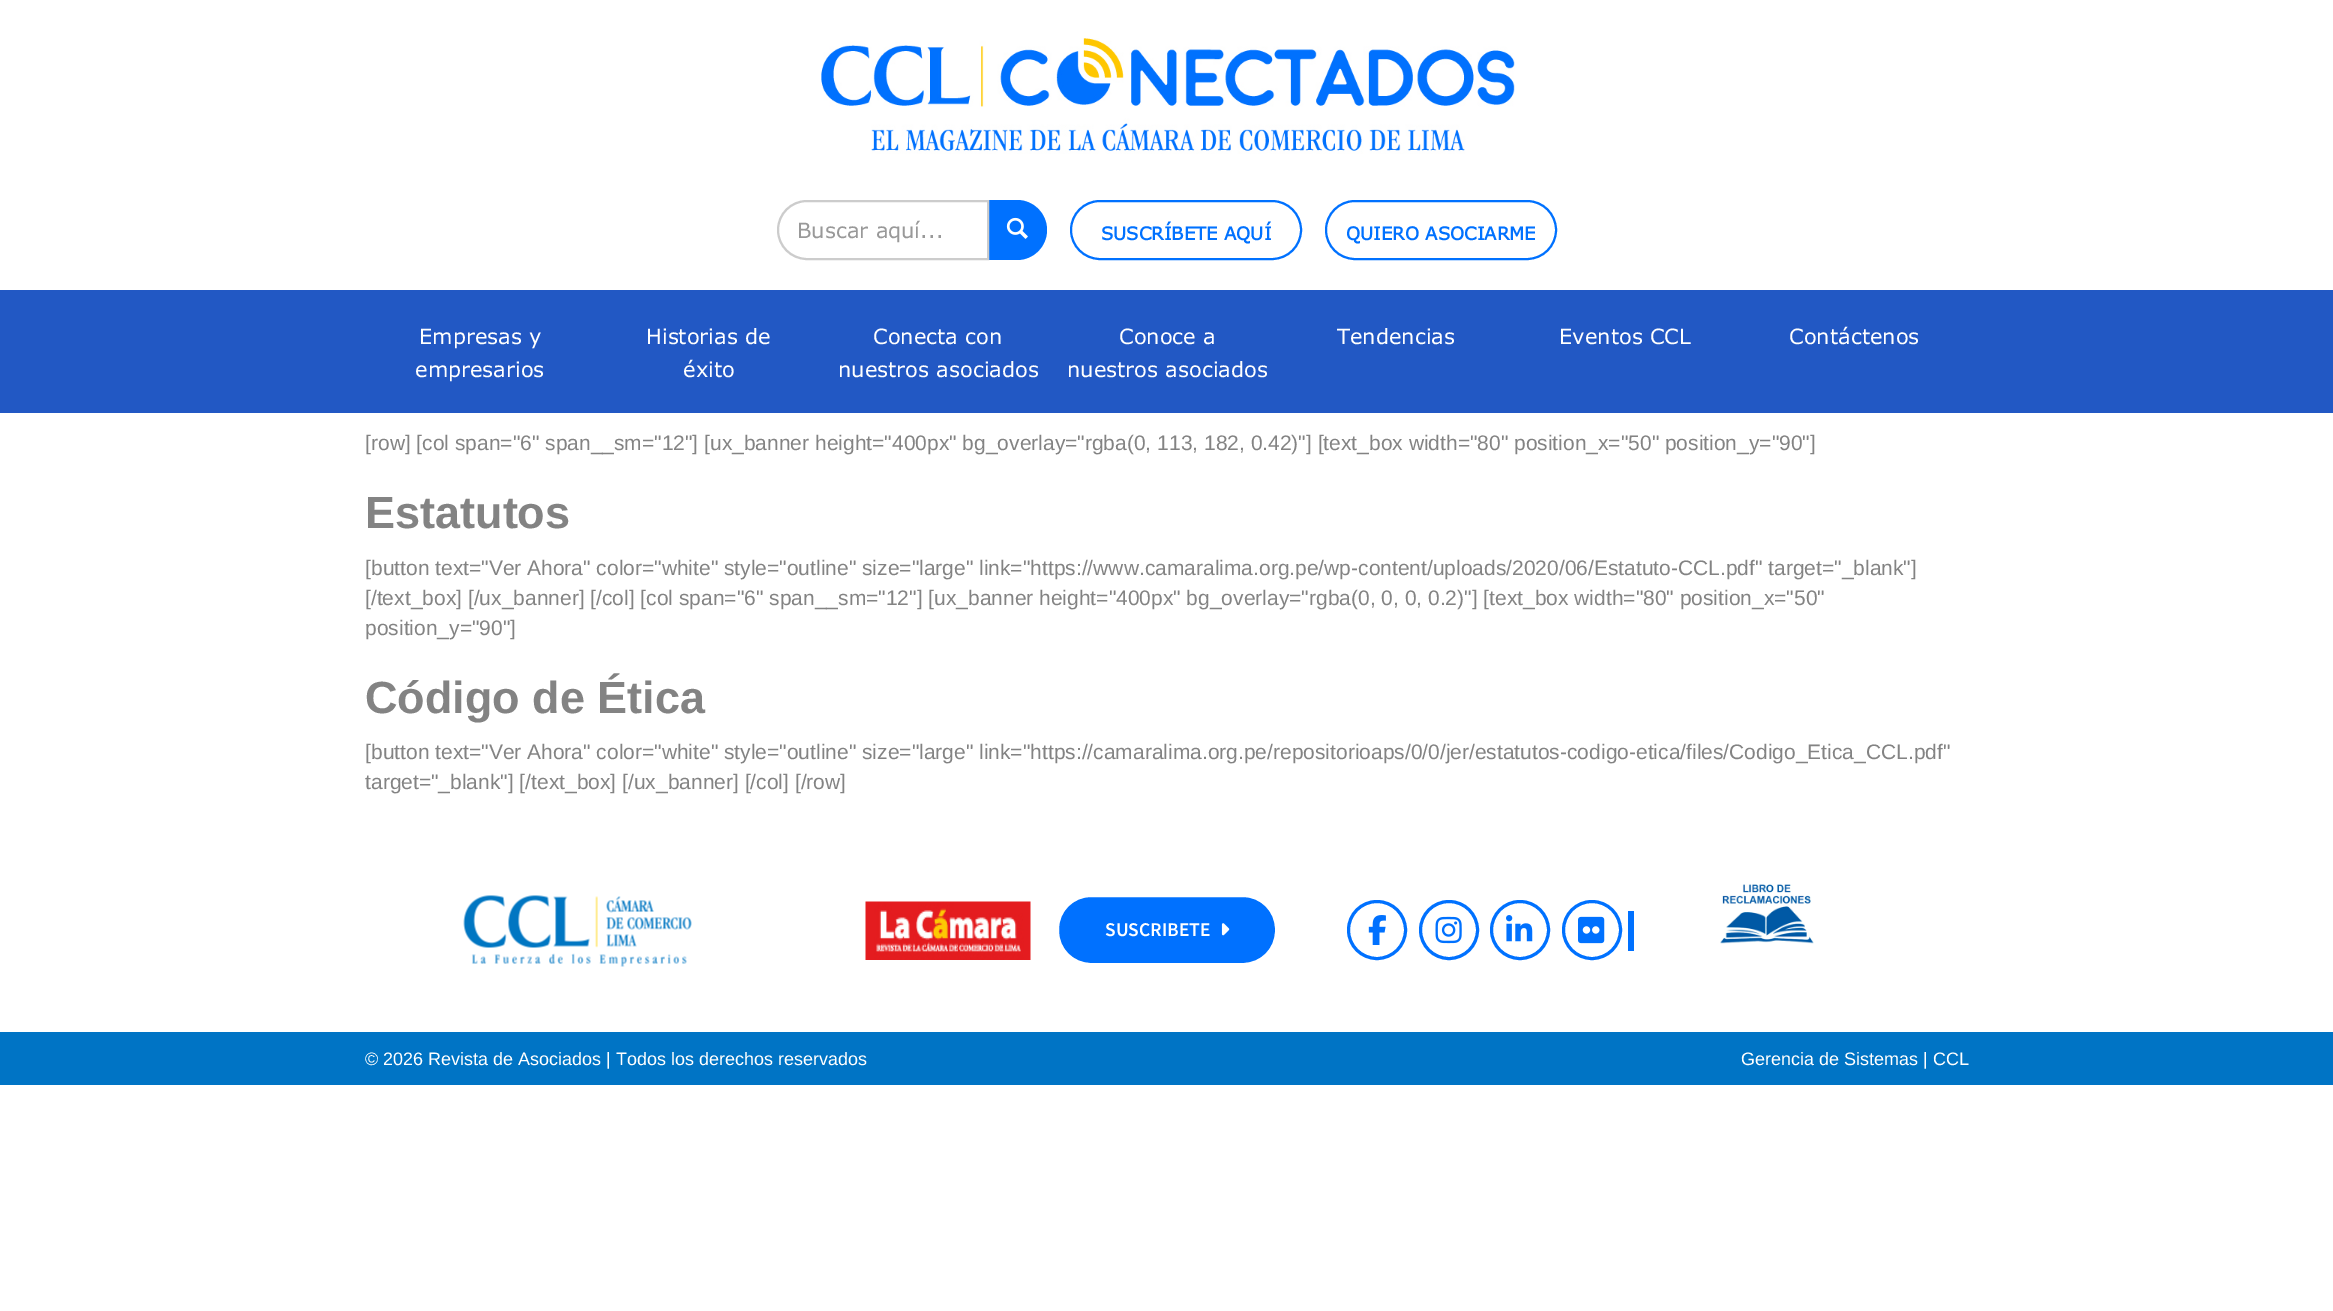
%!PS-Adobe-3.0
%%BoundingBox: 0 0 2333 1311
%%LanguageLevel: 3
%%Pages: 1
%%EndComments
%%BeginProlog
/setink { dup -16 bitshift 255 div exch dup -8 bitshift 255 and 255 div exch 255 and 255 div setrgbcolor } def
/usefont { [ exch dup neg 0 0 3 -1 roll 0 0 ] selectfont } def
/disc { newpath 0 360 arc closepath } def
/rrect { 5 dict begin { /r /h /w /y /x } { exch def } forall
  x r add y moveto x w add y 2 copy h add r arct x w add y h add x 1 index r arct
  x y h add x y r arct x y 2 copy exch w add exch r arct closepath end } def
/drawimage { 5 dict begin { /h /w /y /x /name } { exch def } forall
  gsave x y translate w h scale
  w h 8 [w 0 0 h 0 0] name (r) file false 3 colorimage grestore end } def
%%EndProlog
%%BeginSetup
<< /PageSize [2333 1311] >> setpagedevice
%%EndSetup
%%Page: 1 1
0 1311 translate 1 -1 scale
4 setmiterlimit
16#FFFFFF setink
0 0 2333 1311 rectfill
(img1.raw) 821 38 694 116 drawimage
16#0071FF setink
987 200 moveto 1017 200 lineto 1033.5 200 1047 213.5 1047 230 curveto 1047 246.5 1033.5 260 1017 260 curveto 987 260 lineto closepath fill
16#FFFFFF setink
807 201 moveto 988 201 lineto 988 259 lineto 807 259 lineto 791 259 778 246 778 230 curveto 778 214 791 201 807 201 curveto closepath gsave fill grestore
16#CCCCCC setink
2 setlinewidth
stroke
/Verdana-Regular 21 usefont
16#999999 setink
797 238 moveto (Buscar aquí...) show
(img2.raw) 1006 217 22 22 drawimage
16#0071FF setink
1071 201 230 58 29 rrect stroke
/Verdana-Bold 18 usefont
1101 240 moveto (SUSCRÍBETE AQUÍ) show
1326 201 230 58 29 rrect stroke
1346 240 moveto (QUIERO ASOCIARME) show
16#2258C4 setink
0 290 2333 123 rectfill
/Verdana-Regular 21 usefont
16#FFFFFF setink
[
    [(Empresas y) 419 344]
    [(empresarios) 415 377]
    [(Historias de) 646 344]
    [(éxito) 683 377]
    [(Conecta con) 873 344]
    [(nuestros asociados) 838 377]
    [(Conoce a) 1119 344]
    [(nuestros asociados) 1067 377]
    [(Tendencias) 1337 344]
    [(Eventos CCL) 1559 344]
    [(Contáctenos) 1789 344]
] { aload pop moveto show } forall
/LiberationSans-Regular 21 usefont
16#838383 setink
365 450 moveto ([row] [col span="6" span__sm="12"] [ux_banner height="400px" bg_overlay="rgba\(0, 113, 182, 0.42\)"] [text_box width="80" position_x="50" position_y="90"]) show
/LiberationSans-Bold 45 usefont
365 528 moveto (Estatutos) show
/LiberationSans-Regular 21 usefont
[
    [([button text="Ver Ahora" color="white" style="outline" size="large" link="https://www.camaralima.org.pe/wp-content/uploads/2020/06/Estatuto-CCL.pdf" target="_blank"]) 365 575]
    [([/text_box] [/ux_banner] [/col] [col span="6" span__sm="12"] [ux_banner height="400px" bg_overlay="rgba\(0, 0, 0, 0.2\)"] [text_box width="80" position_x="50") 365 605]
    [(position_y="90"]) 365 635]
] { aload pop moveto show } forall
/LiberationSans-Bold 45 usefont
365 713 moveto (Código de Ética) show
/LiberationSans-Regular 21 usefont
365 759 moveto ([button text="Ver Ahora" color="white" style="outline" size="large" link="https://camaralima.org.pe/repositorioaps/0/0/jer/estatutos-codigo-etica/files/Codigo_Etica_CCL.pdf") show
365 789 moveto (target="_blank"] [/text_box] [/ux_banner] [/col] [/row]) show
(img3.raw) 463 895 229 72 drawimage
(img4.raw) 865 901 166 59 drawimage
16#0071FF setink
1056 894 222 72 35 rrect gsave fill grestore
16#FFFFFF setink
6 setlinewidth
stroke
/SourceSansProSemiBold-SemiBold 19.5 usefont
1105 936 moveto (SUSCRIBETE) show
(img5.raw) 1221 923 9 13 drawimage
16#0071FF setink
3 setlinewidth
1377 930 28.5 disc stroke
(img6.raw) 1368 915 18 30 drawimage
1449 930 28.5 disc stroke
(img7.raw) 1435 916 27 28 drawimage
1520 930 28.5 disc stroke
(img8.raw) 1506 915 27 27 drawimage
1592 930 28.5 disc stroke
(img9.raw) 1578 916 27 28 drawimage
1628 911 6 40 rectfill
(img10.raw) 1720 884 94 60 drawimage
16#0074C5 setink
0 1032 2333 53 rectfill
/LiberationSans-Regular 18 usefont
16#FFFFFF setink
365 1065 moveto (© 2026 Revista de Asociados | Todos los derechos reservados) show
1741 1065 moveto (Gerencia de Sistemas | CCL) show
showpage
%%EOF
